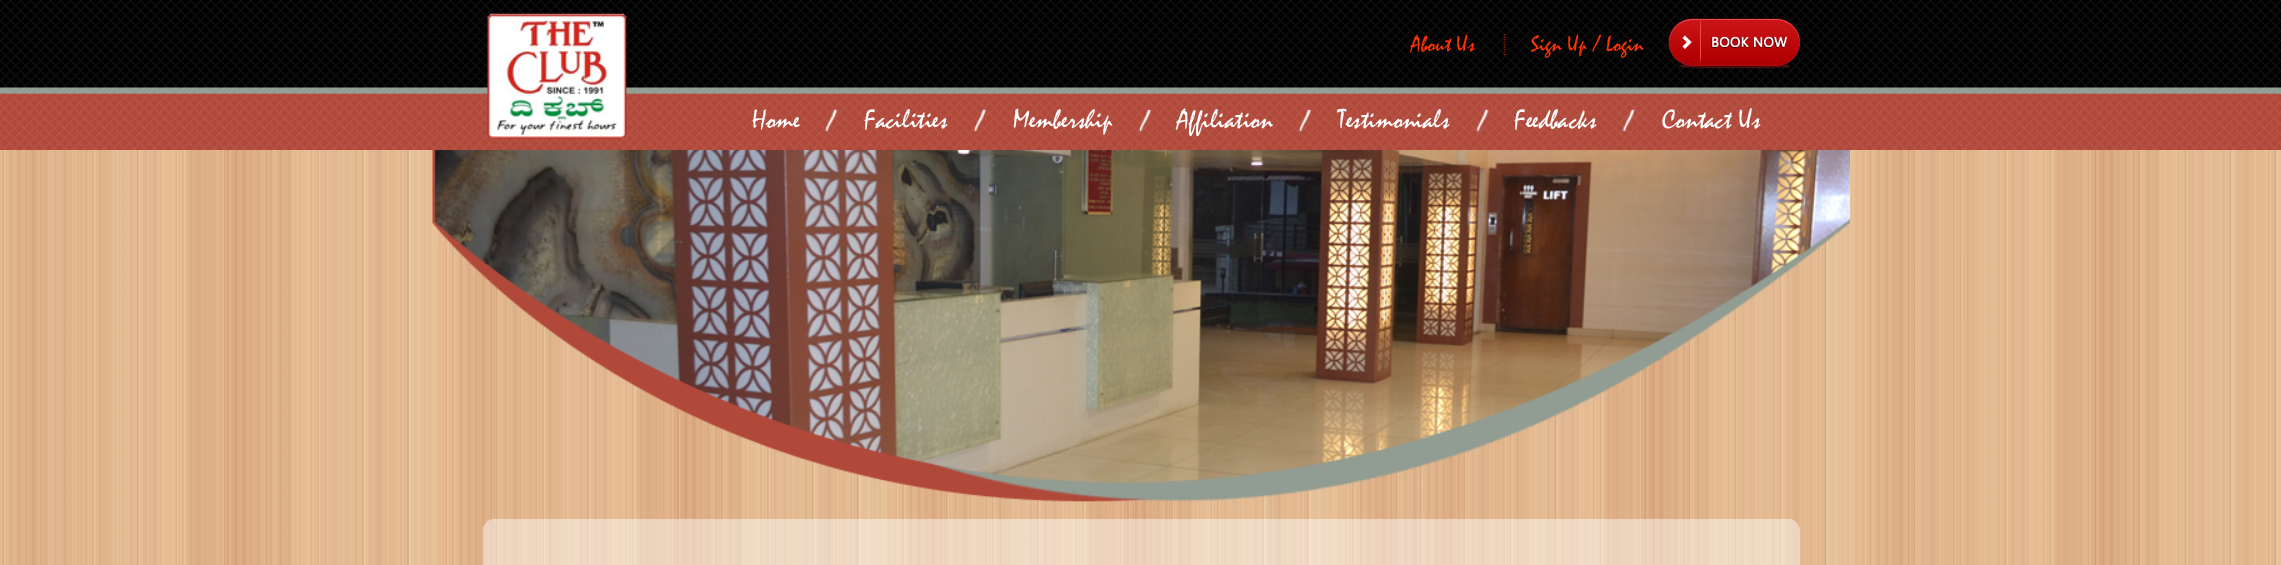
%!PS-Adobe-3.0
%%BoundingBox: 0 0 2281 565
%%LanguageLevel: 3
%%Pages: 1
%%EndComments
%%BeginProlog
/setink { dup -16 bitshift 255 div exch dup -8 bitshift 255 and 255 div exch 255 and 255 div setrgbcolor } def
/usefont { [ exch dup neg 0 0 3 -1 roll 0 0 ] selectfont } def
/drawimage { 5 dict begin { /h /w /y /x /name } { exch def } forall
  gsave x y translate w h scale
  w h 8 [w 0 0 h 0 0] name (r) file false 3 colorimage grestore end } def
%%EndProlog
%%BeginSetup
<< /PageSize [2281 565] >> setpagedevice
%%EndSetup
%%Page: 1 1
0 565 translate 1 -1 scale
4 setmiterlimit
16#FFFFFF setink
0 0 2281 565 rectfill
(img1.raw) 0 150 2281 415 drawimage
(img2.raw) 0 0 2281 150 drawimage
(img3.raw) 487 13 140 126 drawimage
/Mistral-Regular 22.5 usefont
16#FF3300 setink
1411 51 moveto (About Us) show
1531 51 moveto (Sign Up / Login) show
16#A91804 setink
1.2 setlinewidth
[1.25 1.25] 0 setdash
1504.5 34 moveto 1504.5 56 lineto stroke
(img4.raw) 1668 18 132 51 drawimage
/Mistral-Regular 27.5 usefont
16#FFFFFF setink
752 128 moveto (Home) show
(img5.raw) 825 108 13 24 drawimage
864 128 moveto (Facilities) show
(img6.raw) 973 108 14 24 drawimage
1013 128 moveto (Membership) show
(img7.raw) 1138 108 14 24 drawimage
1177 128 moveto (Affiliation) show
(img8.raw) 1298 108 14 24 drawimage
1338 128 moveto (Testimonials) show
(img9.raw) 1476 108 13 24 drawimage
1514 128 moveto (Feedbacks) show
(img10.raw) 1622 108 14 24 drawimage
1662 128 moveto (Contact Us) show
(img11.raw) 432 150 1418 352 drawimage
(img12.raw) 482 519 1318 46 drawimage
showpage
%%EOF
